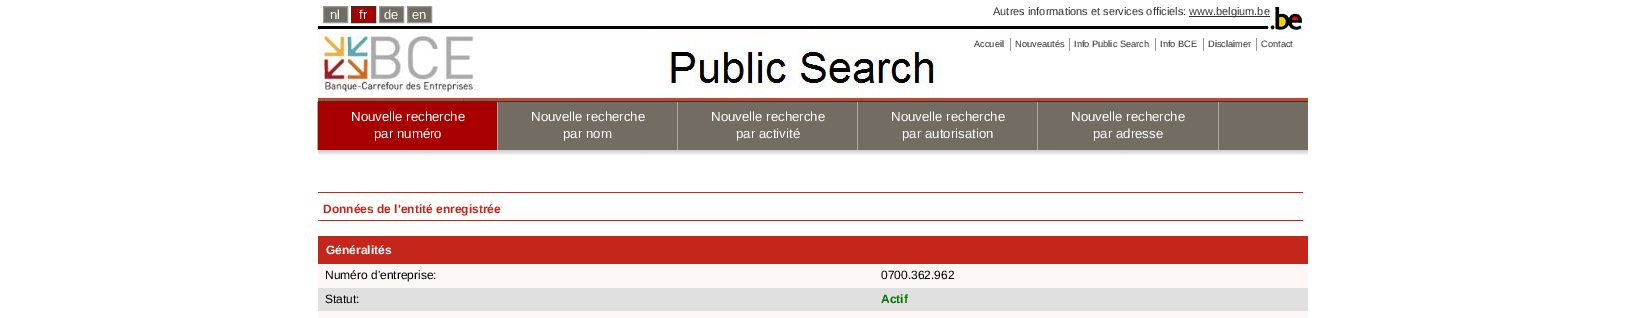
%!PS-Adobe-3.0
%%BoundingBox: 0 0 1625 318
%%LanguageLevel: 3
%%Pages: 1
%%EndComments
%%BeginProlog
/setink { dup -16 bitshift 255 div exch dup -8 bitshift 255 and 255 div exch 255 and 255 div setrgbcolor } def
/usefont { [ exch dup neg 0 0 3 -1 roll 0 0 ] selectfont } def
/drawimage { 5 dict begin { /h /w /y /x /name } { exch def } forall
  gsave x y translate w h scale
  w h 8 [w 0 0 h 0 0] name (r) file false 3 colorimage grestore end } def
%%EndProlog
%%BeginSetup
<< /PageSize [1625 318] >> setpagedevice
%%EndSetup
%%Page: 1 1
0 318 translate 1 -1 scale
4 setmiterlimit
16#FFFFFF setink
0 0 1625 318 rectfill
(img1.raw) 318 32 990 69 drawimage
(img2.raw) 318 26 951 3 drawimage
16#736C63 setink
323.5 6.5 moveto 347.5 6.5 lineto 347.5 22.5 lineto 323.5 22.5 lineto closepath gsave fill grestore
16#999999 setink
stroke
/LiberationSans-Regular 13 usefont
16#FFFFFF setink
330 19 moveto (nl) show
16#A80000 setink
351.5 6.5 moveto 375.5 6.5 lineto 375.5 22.5 lineto 351.5 22.5 lineto closepath gsave fill grestore
16#333333 setink
stroke
16#FFFFFF setink
359 19 moveto (fr) show
16#736C63 setink
379.5 6.5 moveto 403.5 6.5 lineto 403.5 22.5 lineto 379.5 22.5 lineto closepath gsave fill grestore
16#999999 setink
stroke
16#FFFFFF setink
384 19 moveto (de) show
16#736C63 setink
407.5 6.5 moveto 431.5 6.5 lineto 431.5 22.5 lineto 407.5 22.5 lineto closepath gsave fill grestore
16#999999 setink
stroke
16#FFFFFF setink
412 19 moveto (en) show
/LiberationSans-Regular 11 usefont
16#333333 setink
993 15 moveto (Autres informations et services officiels:) show
1189 16 81 1 rectfill
1189 15 moveto (www.belgium.be) show
(img3.raw) 1270 7 32 23 drawimage
/LiberationSans-Regular 9.25 usefont
974 47 moveto (Accueil) show
16#999999 setink
1010 38 1 13 rectfill
16#333333 setink
1015 47 moveto (Nouveautés) show
16#999999 setink
1069 38 1 13 rectfill
16#333333 setink
1074 47 moveto (Info Public Search) show
16#999999 setink
1155 38 1 13 rectfill
16#333333 setink
1160 47 moveto (Info BCE) show
16#999999 setink
1203 38 1 13 rectfill
16#333333 setink
1208 47 moveto (Disclaimer) show
16#999999 setink
1256 38 1 13 rectfill
16#333333 setink
1261 47 moveto (Contact) show
[
    [1219 102 89 48 16#736C63]
    [318 101 990 1 16#333333]
    [318 102 179 48 16#A80000]
    [317 102 1 48 16#AFA9A1]
] { aload pop setink rectfill } forall
/LiberationSans-Regular 13.25 usefont
16#FFFFFF setink
351 121 moveto (Nouvelle recherche) show
374 138 moveto (par numéro) show
16#736C63 setink
498 102 179 48 rectfill
16#AFA9A1 setink
497 102 1 48 rectfill
16#FFFFFF setink
531 121 moveto (Nouvelle recherche) show
563 138 moveto (par nom) show
16#736C63 setink
678 102 179 48 rectfill
16#AFA9A1 setink
677 102 1 48 rectfill
16#FFFFFF setink
711 121 moveto (Nouvelle recherche) show
736 138 moveto (par activité) show
16#736C63 setink
858 102 179 48 rectfill
16#AFA9A1 setink
857 102 1 48 rectfill
16#FFFFFF setink
891 121 moveto (Nouvelle recherche) show
902 138 moveto (par autorisation) show
[
    [1038 102 180 48 16#736C63]
    [1218 102 1 48 16#AFA9A1]
    [1037 102 1 48 16#AFA9A1]
] { aload pop setink rectfill } forall
16#FFFFFF setink
1071 121 moveto (Nouvelle recherche) show
1093 138 moveto (par adresse) show
(img4.raw) 318 150 990 6 drawimage
16#C5261B setink
318 192 985 1 rectfill
318 220 985 1 rectfill
/LiberationSans-Bold 12 usefont
323 213 moveto (Données de l'entité enregistrée) show
318 236 990 28 rectfill
16#FFFFFF setink
326 254 moveto (Généralités) show
16#FDF7F6 setink
318 264 990 24 rectfill
/LiberationSans-Regular 12 usefont
16#000000 setink
325 279 moveto (Numéro d'entreprise:) show
881 279 moveto (0700.362.962) show
16#E0E0E0 setink
318 288 990 23 rectfill
16#000000 setink
325 303 moveto (Statut:) show
/LiberationSans-Bold 12 usefont
16#007400 setink
881 303 moveto (Actif) show
16#FDF7F6 setink
318 311 990 7 rectfill
showpage
%%EOF
